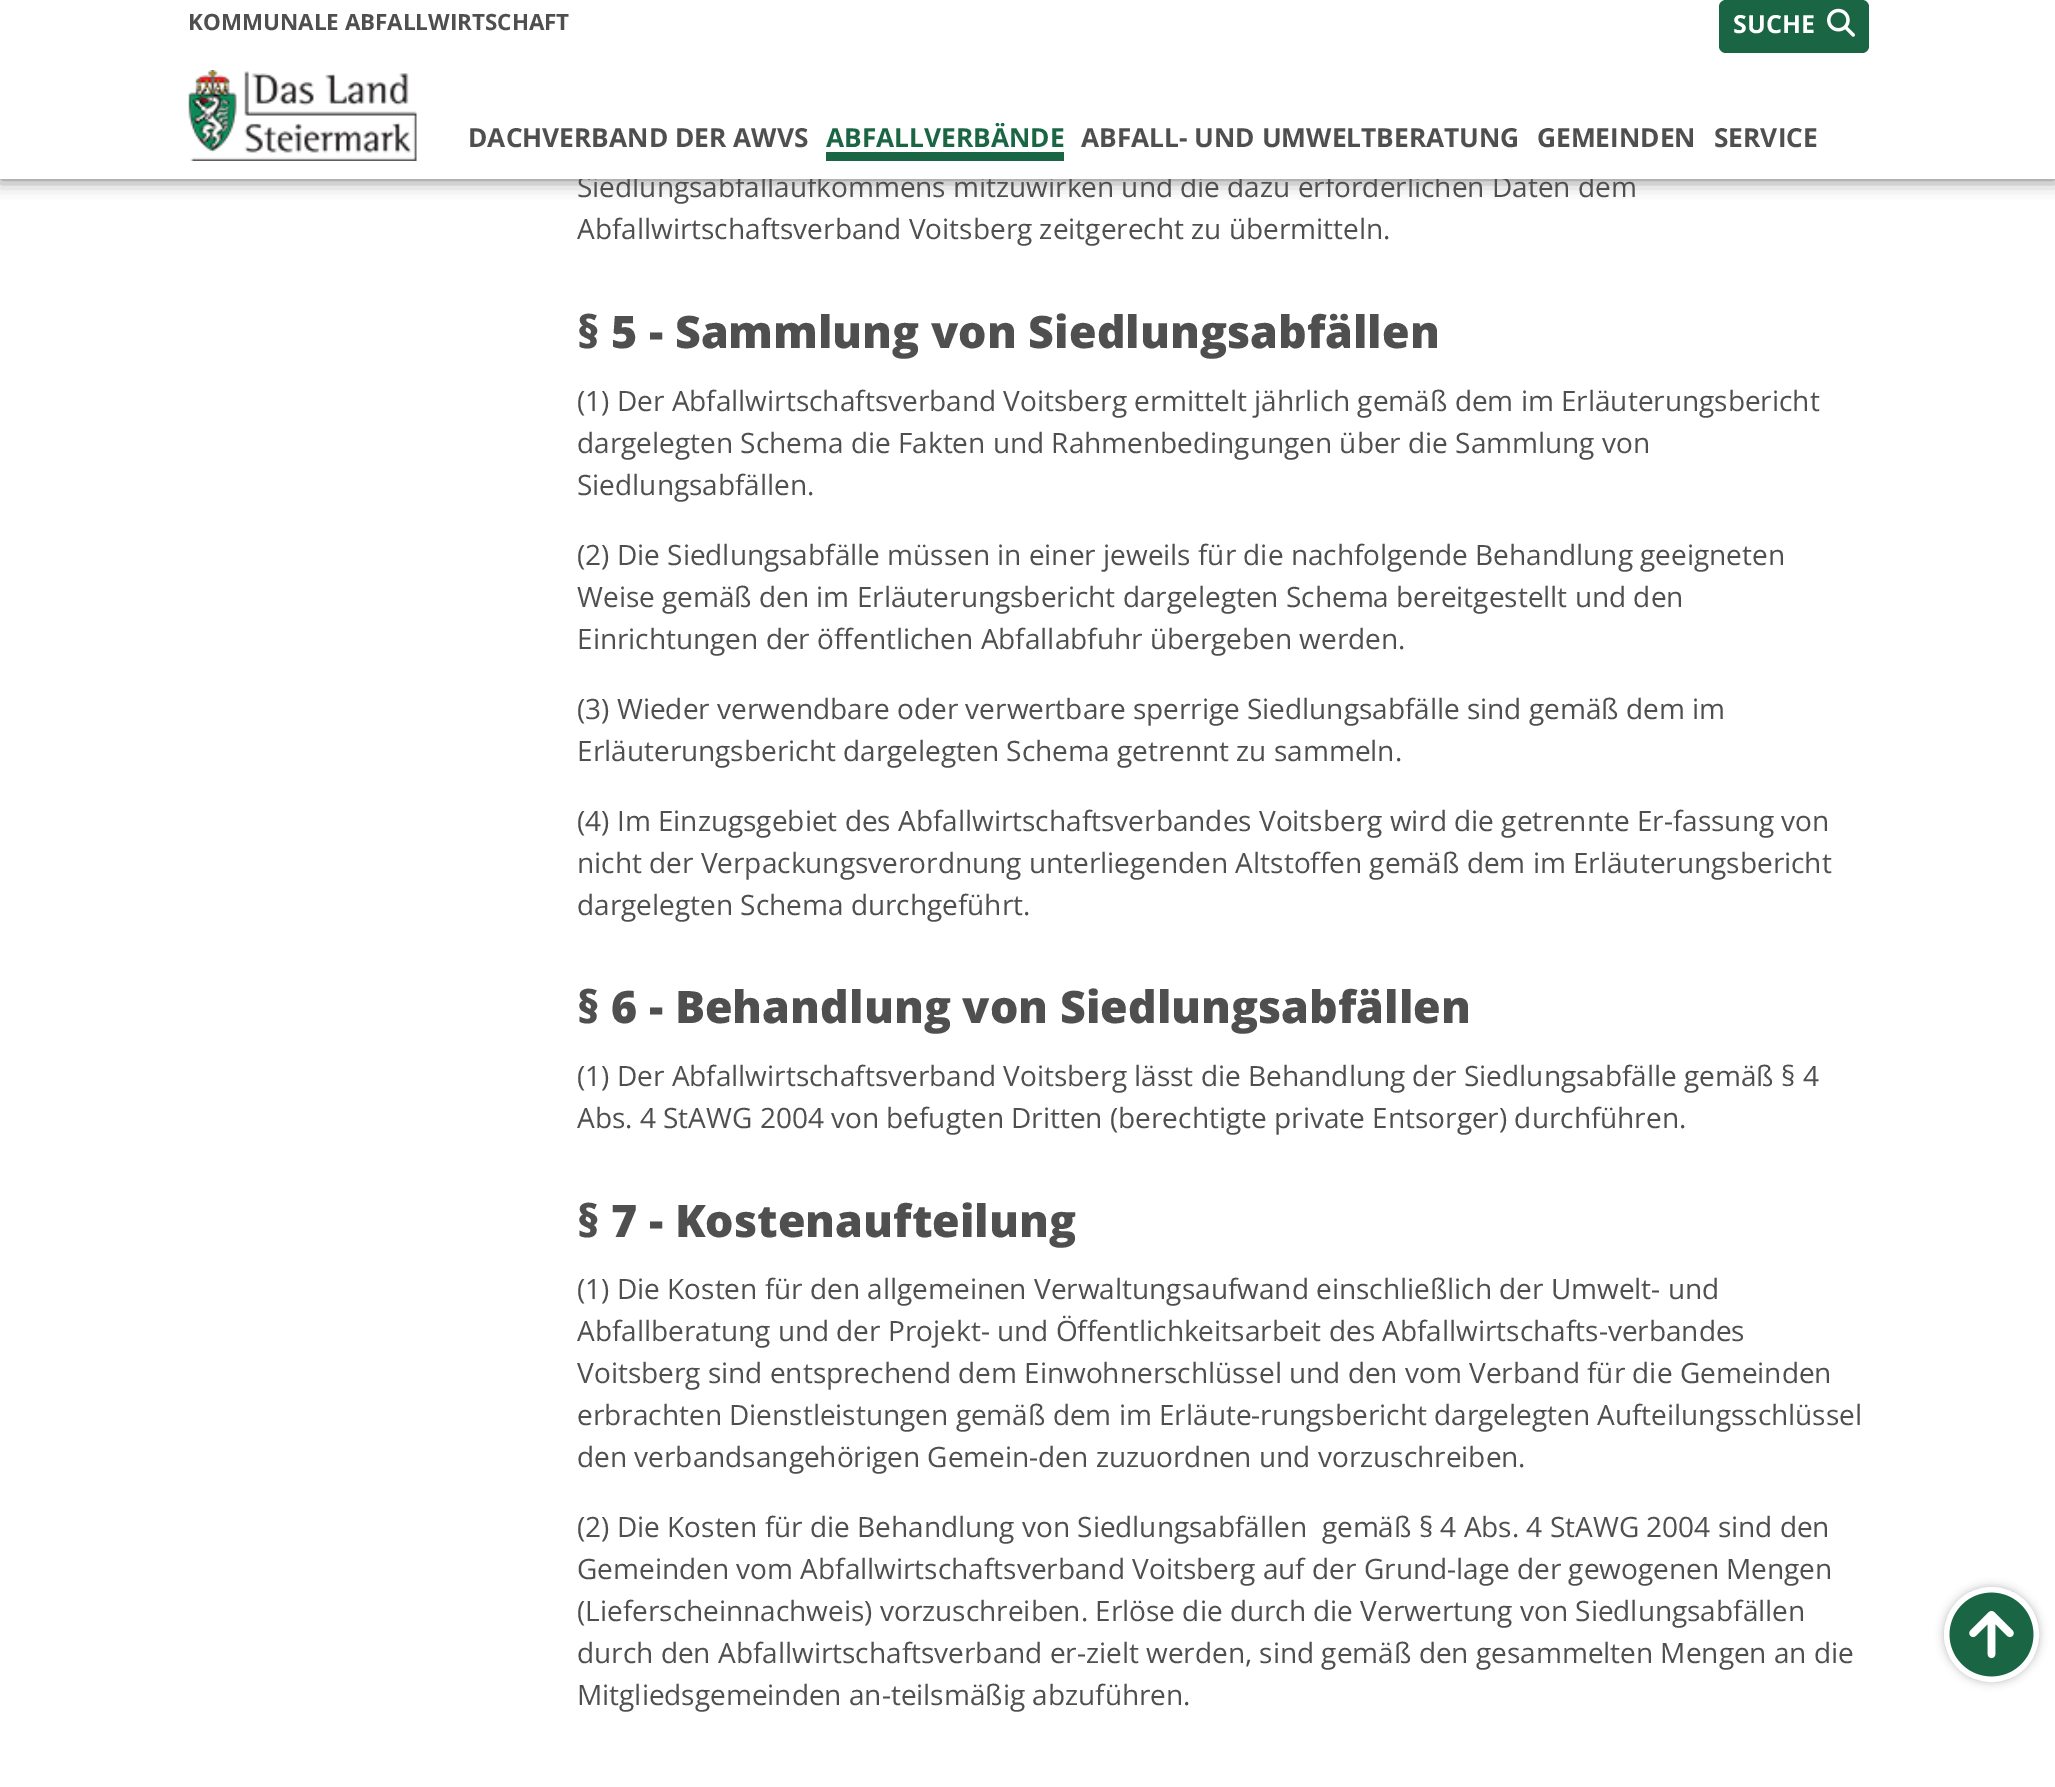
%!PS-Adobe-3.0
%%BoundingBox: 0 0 2055 1787
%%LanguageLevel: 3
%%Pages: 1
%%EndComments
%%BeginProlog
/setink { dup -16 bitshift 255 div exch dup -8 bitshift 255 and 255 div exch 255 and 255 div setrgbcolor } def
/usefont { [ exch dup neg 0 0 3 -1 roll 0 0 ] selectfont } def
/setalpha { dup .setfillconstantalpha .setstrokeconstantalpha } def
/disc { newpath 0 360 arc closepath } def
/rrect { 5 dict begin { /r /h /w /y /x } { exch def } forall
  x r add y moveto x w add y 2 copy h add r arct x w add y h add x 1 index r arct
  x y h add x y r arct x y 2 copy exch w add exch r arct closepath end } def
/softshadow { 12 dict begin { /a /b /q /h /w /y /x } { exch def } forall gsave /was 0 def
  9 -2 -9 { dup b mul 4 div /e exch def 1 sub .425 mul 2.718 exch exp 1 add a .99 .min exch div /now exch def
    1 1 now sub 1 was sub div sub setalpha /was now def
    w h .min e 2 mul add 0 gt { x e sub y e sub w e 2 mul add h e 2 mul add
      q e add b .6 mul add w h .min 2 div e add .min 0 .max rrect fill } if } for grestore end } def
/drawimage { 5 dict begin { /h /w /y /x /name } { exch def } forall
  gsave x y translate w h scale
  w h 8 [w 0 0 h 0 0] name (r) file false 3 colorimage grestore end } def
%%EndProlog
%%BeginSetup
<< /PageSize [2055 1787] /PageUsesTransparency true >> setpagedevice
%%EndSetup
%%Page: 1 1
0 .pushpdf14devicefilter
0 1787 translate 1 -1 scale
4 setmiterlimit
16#FFFFFF setink
0 0 2055 1787 rectfill
16#656565 setink
0 0 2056 179 0 9 1 softshadow
/OpenSans-Regular 28 usefont
16#4F4F4F setink
577 197 moveto (Siedlungsabfallaufkommens mitzuwirken und die dazu erforderlichen Daten dem) show
16#FFFFFF setink
0 0 2055 179 rectfill
/OpenSans-Bold 22.4 usefont
16#4F4F4F setink
188 30 moveto (KOMMUNALE ABFALLWIRTSCHAFT) show
16#1A6544 setink
1719 0 150 53 7 rrect fill
/OpenSans-Bold 25 usefont
16#FFFFFF setink
1733 33 moveto (SUCHE) show
(img1.raw) 1827 8 28 29 drawimage
(img2.raw) 188 70 229 91 drawimage
/OpenSans-Bold 26.25 usefont
16#4F4F4F setink
468 147 moveto (DACHVERBAND DER AWVS) show
16#1A6544 setink
826 147 moveto (ABFALLVERBÄNDE) show
826 152 238 9 rectfill
16#4F4F4F setink
[
    [(ABFALL- UND UMWELTBERATUNG) 1081 147]
    [(GEMEINDEN) 1537 147]
    [(SERVICE) 1714 147]
] { aload pop moveto show } forall
/OpenSans-Regular 28 usefont
577 239 moveto (Abfallwirtschaftsverband Voitsberg zeitgerecht zu übermitteln.) show
/OpenSans-ExtraBold 44.75 usefont
577 348 moveto (§ 5 - Sammlung von Siedlungsabfällen) show
/OpenSans-Regular 28 usefont
[
    [(\(1\) Der Abfallwirtschaftsverband Voitsberg ermittelt jährlich gemäß dem im Erläuterungsbericht) 577 411]
    [(dargelegten Schema die Fakten und Rahmenbedingungen über die Sammlung von) 577 453]
    [(Siedlungsabfällen.) 577 495]
    [(\(2\) Die Siedlungsabfälle müssen in einer jeweils für die nachfolgende Behandlung geeigneten) 577 565]
    [(Weise gemäß den im Erläuterungsbericht dargelegten Schema bereitgestellt und den) 577 607]
    [(Einrichtungen der öffentlichen Abfallabfuhr übergeben werden.) 577 649]
    [(\(3\) Wieder verwendbare oder verwertbare sperrige Siedlungsabfälle sind gemäß dem im) 577 719]
    [(Erläuterungsbericht dargelegten Schema getrennt zu sammeln.) 577 761]
    [(\(4\) Im Einzugsgebiet des Abfallwirtschaftsverbandes Voitsberg wird die getrennte Er-fassung von) 577 831]
    [(nicht der Verpackungsverordnung unterliegenden Altstoffen gemäß dem im Erläuterungsbericht) 577 873]
    [(dargelegten Schema durchgeführt.) 577 915]
] { aload pop moveto show } forall
/OpenSans-ExtraBold 44.75 usefont
577 1023 moveto (§ 6 - Behandlung von Siedlungsabfällen) show
/OpenSans-Regular 28 usefont
577 1086 moveto (\(1\) Der Abfallwirtschaftsverband Voitsberg lässt die Behandlung der Siedlungsabfälle gemäß § 4) show
577 1128 moveto (Abs. 4 StAWG 2004 von befugten Dritten \(berechtigte private Entsorger\) durchführen.) show
/OpenSans-ExtraBold 44.75 usefont
577 1237 moveto (§ 7 - Kostenaufteilung) show
/OpenSans-Regular 28 usefont
[
    [(\(1\) Die Kosten für den allgemeinen Verwaltungsaufwand einschließlich der Umwelt- und) 577 1299]
    [(Abfallberatung und der Projekt- und Öffentlichkeitsarbeit des Abfallwirtschafts-verbandes) 577 1341]
    [(Voitsberg sind entsprechend dem Einwohnerschlüssel und den vom Verband für die Gemeinden) 577 1383]
    [(erbrachten Dienstleistungen gemäß dem im Erläute-rungsbericht dargelegten Aufteilungsschlüssel) 577 1425]
    [(den verbandsangehörigen Gemein-den zuzuordnen und vorzuschreiben.) 577 1467]
    [(\(2\) Die Kosten für die Behandlung von Siedlungsabfällen  gemäß § 4 Abs. 4 StAWG 2004 sind den) 577 1537]
    [(Gemeinden vom Abfallwirtschaftsverband Voitsberg auf der Grund-lage der gewogenen Mengen) 577 1579]
    [(\(Lieferscheinnachweis\) vorzuschreiben. Erlöse die durch die Verwertung von Siedlungsabfällen) 577 1621]
    [(durch den Abfallwirtschaftsverband er-zielt werden, sind gemäß den gesammelten Mengen an die) 577 1663]
    [(Mitgliedsgemeinden an-teilsmäßig abzuführen.) 577 1705]
] { aload pop moveto show } forall
16#BCBCBC setink
1944 1587 95 95 47.5 4.5 1 softshadow
16#FFFFFF setink
1991.5 1634.5 45 disc gsave fill grestore
5 setlinewidth
stroke
(img3.raw) 1949 1592 85 85 drawimage
.poppdf14devicefilter showpage
%%EOF
